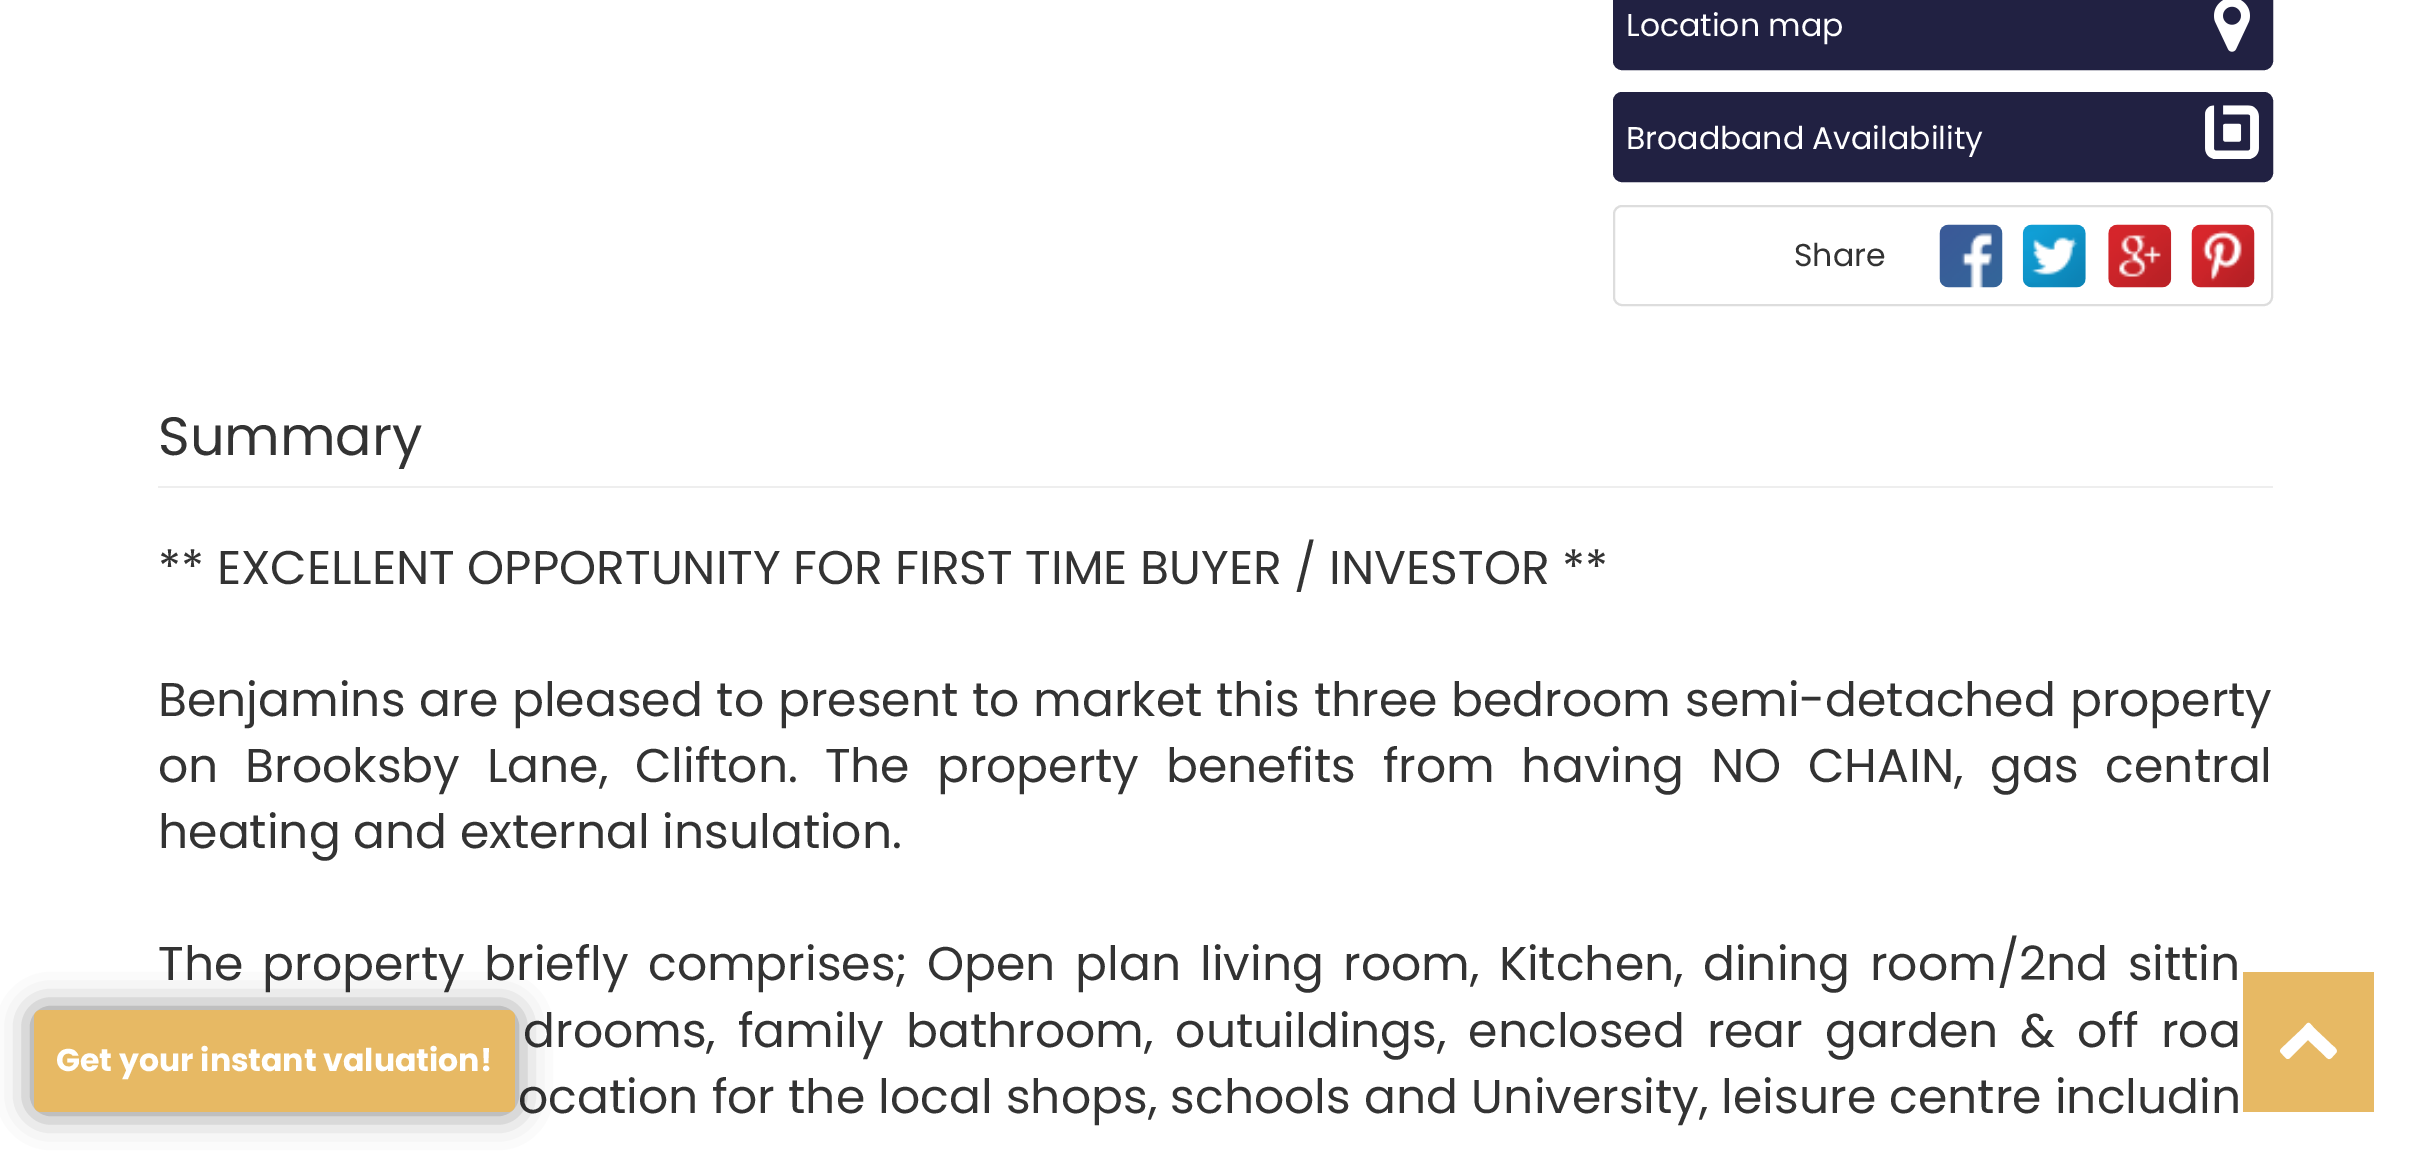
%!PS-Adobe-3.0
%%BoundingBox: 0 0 2428 1167
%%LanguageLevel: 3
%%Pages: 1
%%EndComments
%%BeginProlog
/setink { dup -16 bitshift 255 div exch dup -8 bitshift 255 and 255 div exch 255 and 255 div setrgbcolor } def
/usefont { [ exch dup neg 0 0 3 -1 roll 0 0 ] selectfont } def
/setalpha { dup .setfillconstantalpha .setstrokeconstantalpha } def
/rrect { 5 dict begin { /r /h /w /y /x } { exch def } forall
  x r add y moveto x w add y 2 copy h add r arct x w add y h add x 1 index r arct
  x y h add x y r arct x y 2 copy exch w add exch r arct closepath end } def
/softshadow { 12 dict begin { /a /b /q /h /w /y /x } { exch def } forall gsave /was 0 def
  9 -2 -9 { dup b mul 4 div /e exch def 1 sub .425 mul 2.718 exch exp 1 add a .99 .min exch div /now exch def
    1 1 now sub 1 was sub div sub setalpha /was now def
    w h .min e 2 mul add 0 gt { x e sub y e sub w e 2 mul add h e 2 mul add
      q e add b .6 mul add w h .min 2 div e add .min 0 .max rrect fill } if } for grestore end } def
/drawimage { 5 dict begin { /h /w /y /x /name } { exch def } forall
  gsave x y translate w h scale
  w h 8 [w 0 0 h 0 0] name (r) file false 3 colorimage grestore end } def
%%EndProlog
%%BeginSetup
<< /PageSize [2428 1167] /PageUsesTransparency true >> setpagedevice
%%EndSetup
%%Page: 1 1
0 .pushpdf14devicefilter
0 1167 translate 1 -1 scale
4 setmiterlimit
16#FFFFFF setink
0 0 2428 1167 rectfill
16#212142 setink
1614 -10 658 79 8 rrect gsave fill grestore
2 setlinewidth
stroke
/Poppins-Regular 31.5 usefont
16#FFFFFF setink
1626 36 moveto (Location map) show
(img1.raw) 2214 0 36 52 drawimage
16#212142 setink
1614 93 658 88 8 rrect gsave fill grestore
stroke
16#FFFFFF setink
1626 149 moveto (Broadband Availability) show
(img2.raw) 2205 105 54 54 drawimage
16#DDDDDD setink
1614 206 658 99 8 rrect stroke
16#333333 setink
1794 266 moveto (Share) show
(img3.raw) 1939 224 64 64 drawimage
(img4.raw) 2022 224 64 64 drawimage
(img5.raw) 2108 224 64 64 drawimage
(img6.raw) 2191 224 64 64 drawimage
16#EEEEEE setink
158 486 2115 2 rectfill
/Poppins-Regular 54 usefont
16#333333 setink
158 455 moveto (Summary) show
/Poppins-Regular 47.25 usefont
158 584 moveto (** EXCELLENT OPPORTUNITY FOR FIRST TIME BUYER / INVESTOR **) show
158 716 moveto 1.25 0 32 (Benjamins are pleased to present to market this three bedroom semi-detached property) widthshow
158 782 moveto 14.25 0 32 (on Brooksby Lane, Clifton. The property benefits from having NO CHAIN, gas central) widthshow
158 848 moveto (heating and external insulation.) show
158 980 moveto 6.75 0 32 (The property briefly comprises; Open plan living room, Kitchen, dining room/2nd sittin) widthshow
523 1047 moveto 9.5 0 32 (drooms, family bathroom, outuildings, enclosed rear garden & off roa) widthshow
518 1113 moveto 0.75 0 32 (ocation for the local shops, schools and University, leisure centre includin) widthshow
16#E7B964 setink
2243 972 131 140 rectfill
16#FFFFFF setink
2336 1053 moveto 2330 1059 2330 1062 2324 1055 curveto 2308 1040 lineto 2293 1055 lineto 2287 1061 2288 1060 2282 1054 curveto 2278 1050 2281 1049 2285 1045 curveto 2303 1028 lineto 2309 1021 2308 1021 2314 1028 curveto 2332 1045 lineto 2333 1046 2339 1050 2336 1053 curveto closepath fill
16#000000 setink
34 1010 481 102 7 17 0.5 softshadow
16#E7B964 setink
34 1010 481 102 7 rrect fill
/Poppins-Bold 31.5 usefont
16#FFFFFF setink
56 1071 moveto (Get your instant valuation!) show
.poppdf14devicefilter showpage
%%EOF
